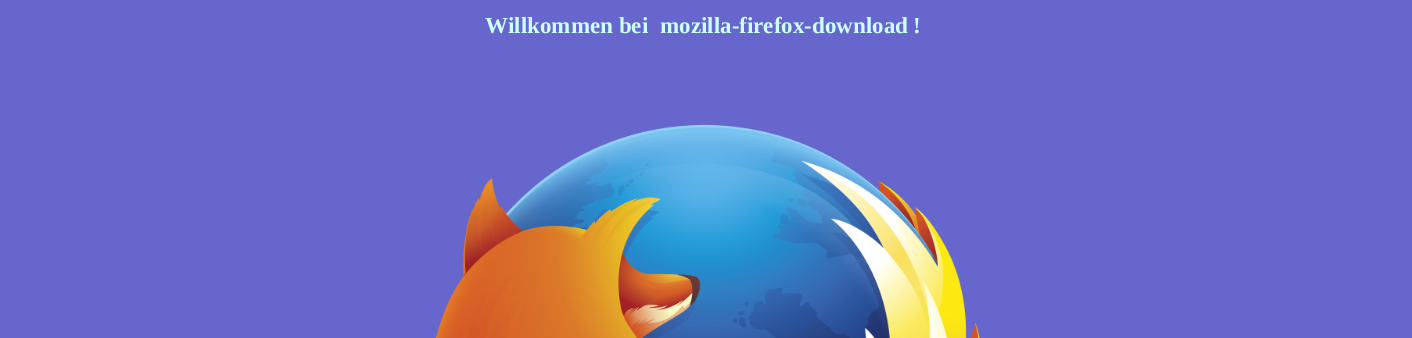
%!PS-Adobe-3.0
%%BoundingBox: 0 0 1412 338
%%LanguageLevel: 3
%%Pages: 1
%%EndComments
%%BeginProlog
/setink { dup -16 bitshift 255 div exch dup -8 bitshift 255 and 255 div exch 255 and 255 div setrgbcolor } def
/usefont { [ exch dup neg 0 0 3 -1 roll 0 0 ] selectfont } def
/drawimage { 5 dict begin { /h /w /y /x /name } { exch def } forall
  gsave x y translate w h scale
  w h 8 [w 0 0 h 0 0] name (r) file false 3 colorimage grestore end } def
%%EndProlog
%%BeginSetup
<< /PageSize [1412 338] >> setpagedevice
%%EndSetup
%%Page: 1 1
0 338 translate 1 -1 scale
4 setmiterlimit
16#6666CC setink
0 0 1412 338 rectfill
/LiberationSerif-Bold 23 usefont
16#CCFFFF setink
[
    [(Willkommen bei) 485 33]
    [(mozilla-firefox-download) 660 33]
    [(!) 913 33]
] { aload pop moveto show } forall
(img1.raw) 435 124 545 214 drawimage
showpage
%%EOF
